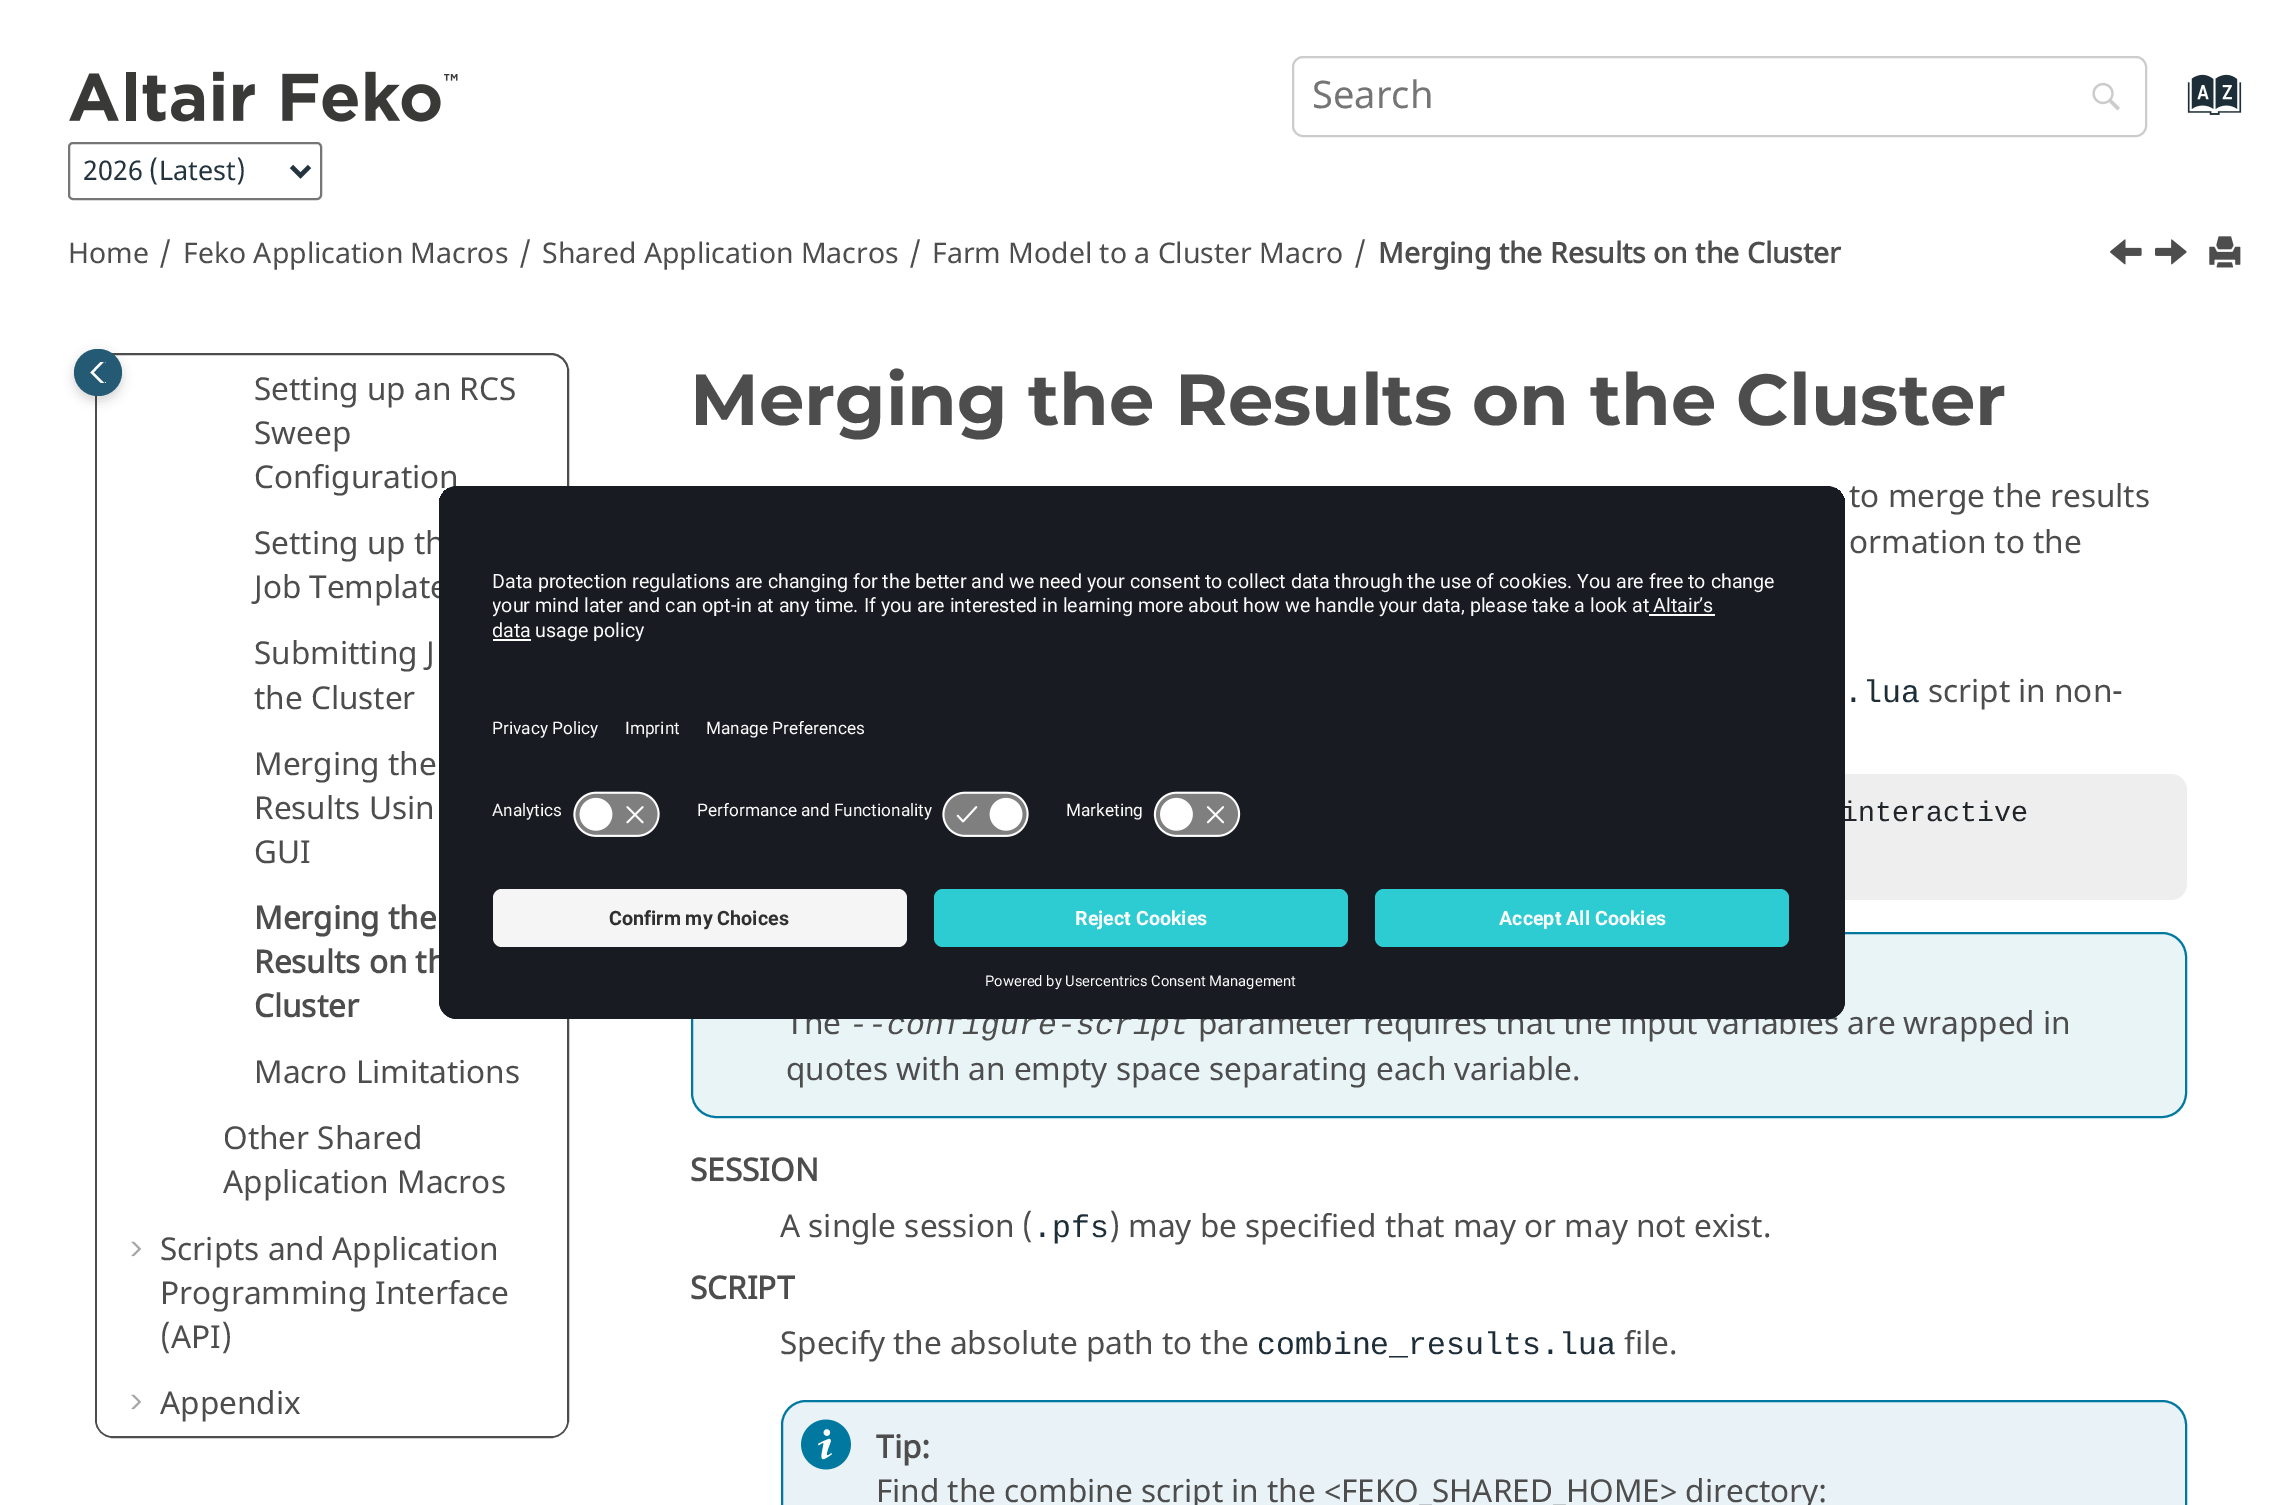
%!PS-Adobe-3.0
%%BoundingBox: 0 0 2281 1505
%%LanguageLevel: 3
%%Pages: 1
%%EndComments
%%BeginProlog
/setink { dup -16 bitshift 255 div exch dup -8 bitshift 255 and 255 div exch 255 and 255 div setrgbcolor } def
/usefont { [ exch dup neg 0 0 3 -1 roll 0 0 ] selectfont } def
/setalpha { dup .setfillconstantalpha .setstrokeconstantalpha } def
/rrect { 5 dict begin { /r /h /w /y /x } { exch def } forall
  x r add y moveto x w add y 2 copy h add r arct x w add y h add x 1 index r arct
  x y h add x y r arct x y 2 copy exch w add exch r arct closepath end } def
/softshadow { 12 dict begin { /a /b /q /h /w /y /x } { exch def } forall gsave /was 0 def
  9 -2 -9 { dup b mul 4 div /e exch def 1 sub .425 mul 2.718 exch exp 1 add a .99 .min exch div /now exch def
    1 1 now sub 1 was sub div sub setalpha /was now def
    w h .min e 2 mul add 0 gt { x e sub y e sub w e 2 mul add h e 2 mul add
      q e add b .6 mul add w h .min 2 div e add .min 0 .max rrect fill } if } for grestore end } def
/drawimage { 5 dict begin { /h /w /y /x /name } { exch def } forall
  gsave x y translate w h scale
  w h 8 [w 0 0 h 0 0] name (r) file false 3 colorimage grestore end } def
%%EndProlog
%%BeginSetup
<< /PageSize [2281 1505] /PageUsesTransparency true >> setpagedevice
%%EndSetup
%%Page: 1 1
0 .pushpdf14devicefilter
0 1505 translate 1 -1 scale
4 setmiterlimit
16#FFFFFF setink
0 0 2281 1505 rectfill
16#CCCCCC setink
2 setlinewidth
1293 57 853 79 10 rrect stroke
/NotoSans-Regular 38 usefont
16#757575 setink
1312 108 moveto (Search) show
(img1.raw) 2092 82 28 29 drawimage
(img2.raw) 2187 74 55 41 drawimage
(img3.raw) 69 71 389 51 drawimage
16#767676 setink
69 143 252 56 4 rrect stroke
16#23343E setink
4.5 setlinewidth
291.5 166.5 moveto 300.5 175.5 lineto 309.5 166.5 lineto stroke
/NotoSans-Regular 27 usefont
83 180 moveto (2026 \(Latest\)) show
/NotoSans-Regular 28.4 usefont
16#4D4D4D setink
[
    [(Home) 68 263]
    [(/) 159 263]
    [(Feko Application Macros) 183 263]
    [(/) 519 263]
    [(Shared Application Macros) 542 263]
    [(/) 909 263]
    [(Farm Model to a Cluster Macro) 932 263]
    [(/) 1354 263]
] { aload pop moveto show } forall
/NotoSans-Bold 28.4 usefont
1378 263 moveto (Merging the Results on the Cluster) show
(img4.raw) 2110 239 32 26 drawimage
(img5.raw) 2155 239 32 26 drawimage
(img6.raw) 2209 236 32 32 drawimage
2 setlinewidth
96 354 472 1083 17 rrect stroke
16#FFFFFF setink
97 356 470 1080 16 rrect fill
/NotoSans-Regular 31.5 usefont
16#4D4D4D setink
[
    [(Setting up an RCS) 254 400]
    [(Sweep) 254 444]
    [(Configuration) 254 488]
    [(Setting up th) 254 554]
    [(Job Template) 254 598]
    [(Submitting J) 254 664]
    [(the Cluster) 254 709]
    [(Merging the) 254 775]
    [(Results Usin) 254 819]
    [(GUI) 254 863]
] { aload pop moveto show } forall
/NotoSans-Bold 31.5 usefont
[
    [(Merging the) 254 929]
    [(Results on th) 254 973]
    [(Cluster) 254 1017]
] { aload pop moveto show } forall
/NotoSans-Regular 31.5 usefont
[
    [(Macro Limitations) 254 1083]
    [(Other Shared) 223 1149]
    [(Application Macros) 223 1193]
] { aload pop moveto show } forall
(img7.raw) 131 1241 11 16 drawimage
[
    [(Scripts and Application) 160 1260]
    [(Programming Interface) 160 1304]
    [(\(API\)) 160 1348]
] { aload pop moveto show } forall
(img7.raw) 131 1394 11 16 drawimage
160 1414 moveto (Appendix) show
16#000000 setink
74 353 48 48 24 5.5 0.16 softshadow
16#245A73 setink
74 349 48 47 23.5 rrect fill
gsave
90 362 16 21 rectclip
16#FFFFFF setink
2.3 setlinewidth
104.5 359.5 moveto 117.5 372.5 lineto 104.5 385 lineto 92 372.5 lineto closepath stroke
grestore
/Montserrat-Bold 72 usefont
16#4D4D4D setink
690 425 moveto (Merging the Results on the Cluster) show
/NotoSans-Regular 31.5 usefont
1849 507 moveto (to merge the results) show
1849 553 moveto (ormation to the) show
/LiberationMono-Regular 31.5 usefont
16#1D2E38 setink
1844 702 moveto (.lua) show
/NotoSans-Regular 31.5 usefont
16#4D4D4D setink
1928 702 moveto (script in non-) show
16#EEEEEE setink
704 774 1483 126 16 rrect fill
/LiberationMono-Regular 28.4 usefont
16#212529 setink
1841 821 moveto (interactive) show
16#E9F4F7 setink
692 933 1494 184 24 rrect gsave fill grestore
16#0078A0 setink
stroke
/NotoSans-Regular 31.5 usefont
16#4D4D4D setink
786 1034 moveto (The) show
/LiberationMono-Italic 31.5 usefont
849 1034 moveto (--configure-script) show
/NotoSans-Regular 31.5 usefont
1198 1034 moveto (parameter requires that the input variables are wrapped in) show
786 1080 moveto (quotes with an empty space separating each variable.) show
/NotoSans-Bold 31.5 usefont
690 1181 moveto (SESSION) show
/NotoSans-Regular 31.5 usefont
780 1237 moveto (A single session \() show
/LiberationMono-Regular 31.5 usefont
16#1D2E38 setink
1033 1237 moveto (.pfs) show
/NotoSans-Regular 31.5 usefont
16#4D4D4D setink
1109 1237 moveto (\) may be specified that may or may not exist.) show
/NotoSans-Bold 31.5 usefont
690 1299 moveto (SCRIPT) show
/NotoSans-Regular 31.5 usefont
780 1354 moveto (Specify the absolute path to the) show
/LiberationMono-Regular 31.5 usefont
16#1D2E38 setink
1257 1354 moveto (combine_results.lua) show
/NotoSans-Regular 31.5 usefont
16#4D4D4D setink
1624 1354 moveto (file.) show
16#E9F3F7 setink
781 1400 1406 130 25 rrect fill
(img8.raw) 801 1419 50 51 drawimage
16#0078A0 setink
782 1401 1404 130 24 rrect stroke
/NotoSans-Bold 31.5 usefont
16#4D4D4D setink
876 1458 moveto (Tip:) show
/NotoSans-Regular 31.5 usefont
876 1502 moveto (Find the combine script in the <FEKO_SHARED_HOME> directory:) show
16#191B23 setink
439 486 1406 533 18 rrect fill
gsave
439 486 1406 533 18 rrect clip newpath
457 486 moveto 1827 486 lineto 1837 486 1845 494 1845 504 curveto 1845 871 lineto 439 871 lineto 439 504 lineto 439 494 447 486 457 486 curveto closepath clip newpath
439 488 1406 383 rectfill
439 488 1406 293 rectfill
grestore
/Roboto-Regular 19.7 usefont
16#FAFAFA setink
492 588 moveto (Data protection regulations are changing for the better and we need your consent to collect data through the use of cookies. You are free to change) show
gsave
493 560 1298 93 rectclip
492 612 moveto (your mind later and can opt-in at any time. If you are interested in learning more about how we handle your data, please take a look at) show
grestore
16#FFFFFF setink
1649 614 66 2 rectfill
16#FAFAFA setink
1653 612 moveto (Altair’s) show
gsave
493 560 1298 93 rectclip
492 637 moveto (data) show
grestore
16#FFFFFF setink
493 639 38 2 rectfill
16#FAFAFA setink
535 637 moveto (usage policy) show
/Roboto-Regular 17.25 usefont
[
    [(Privacy Policy) 492 734]
    [(Imprint) 625 734]
    [(Manage Preferences) 706 734]
    [(Analytics) 492 816]
] { aload pop moveto show } forall
(img9.raw) 573 791 87 46 drawimage
697 816 moveto (Performance and Functionality) show
(img10.raw) 942 791 87 46 drawimage
1066 816 moveto (Marketing) show
(img11.raw) 1153 791 88 46 drawimage
16#191B23 setink
439 871 moveto 1845 871 lineto 1845 1001 lineto 1845 1011 1837 1019 1827 1019 curveto 457 1019 lineto 447 1019 439 1011 439 1001 curveto closepath fill
16#F5F5F5 setink
493 889 414 58 9 rrect fill
/Roboto-Bold 19.7 usefont
16#303030 setink
609 925 moveto (Confirm my Choices) show
16#2DCCD3 setink
934 889 414 58 9 rrect fill
16#FAFAFA setink
1075 925 moveto (Reject Cookies) show
16#2DCCD3 setink
1375 889 414 58 9 rrect fill
16#FAFAFA setink
1499 925 moveto (Accept All Cookies) show
/Roboto-Regular 14.75 usefont
985 986 moveto (Powered by Usercentrics Consent Management) show
.poppdf14devicefilter showpage
%%EOF
